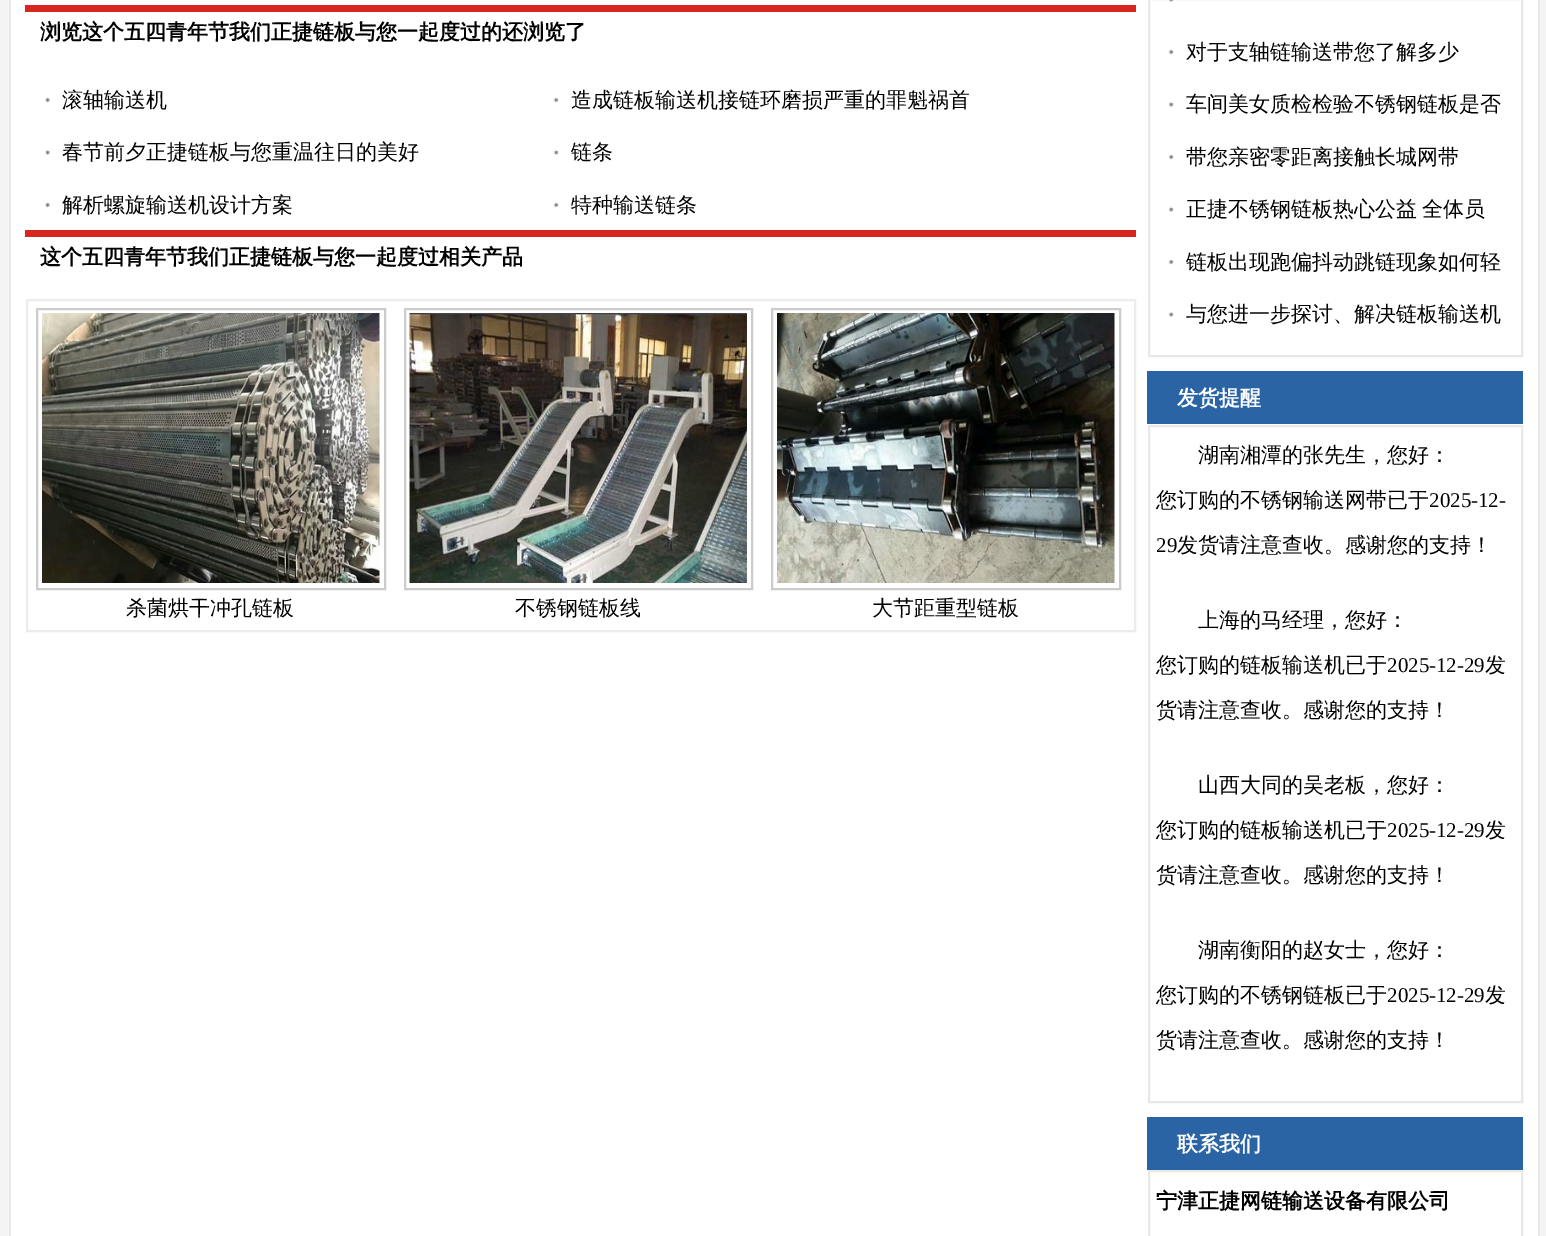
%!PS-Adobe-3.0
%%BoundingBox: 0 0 1546 1236
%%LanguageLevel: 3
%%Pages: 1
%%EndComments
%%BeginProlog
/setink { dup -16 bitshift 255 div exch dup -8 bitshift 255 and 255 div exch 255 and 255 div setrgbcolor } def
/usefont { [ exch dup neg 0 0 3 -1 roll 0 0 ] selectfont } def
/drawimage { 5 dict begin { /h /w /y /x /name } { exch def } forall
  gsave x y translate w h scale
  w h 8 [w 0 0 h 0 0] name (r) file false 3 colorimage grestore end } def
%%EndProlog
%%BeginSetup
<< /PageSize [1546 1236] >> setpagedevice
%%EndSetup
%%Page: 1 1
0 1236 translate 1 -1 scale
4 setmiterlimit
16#F4F4F4 setink
0 0 1546 1236 rectfill
[
    [11 0 1527 1236 16#FFFFFF]
    [1538 0 2 1236 16#E9E9E9]
    [9 0 2 1236 16#E9E9E9]
    [25 5 1111 7 16#D7261E]
] { aload pop setink rectfill } forall
/WenQuanYiZenHei-Bold 21 usefont
16#000000 setink
40 39 moveto (浏览这个五四青年节我们正捷链板与您一起度过的还浏览了) show
(img1.raw) 45 97 5 6 drawimage
/WenQuanYiZenHei-Medium 21 usefont
62 107 moveto (滚轴输送机) show
(img2.raw) 553 97 6 6 drawimage
571 107 moveto (造成链板输送机接链环磨损严重的罪魁祸首) show
(img3.raw) 45 149 5 7 drawimage
62 159 moveto (春节前夕正捷链板与您重温往日的美好) show
(img4.raw) 553 149 6 7 drawimage
571 159 moveto (链条) show
(img1.raw) 45 202 5 6 drawimage
62 212 moveto (解析螺旋输送机设计方案) show
(img2.raw) 553 202 6 6 drawimage
571 212 moveto (特种输送链条) show
16#D7261E setink
25 230 1111 7 rectfill
/WenQuanYiZenHei-Bold 21 usefont
16#000000 setink
40 264 moveto (这个五四青年节我们正捷链板与您一起度过相关产品) show
16#ECECEC setink
2 setlinewidth
27 300 1108 331 rectstroke
16#CCCCCC setink
37 309 348 280 rectstroke
(img5.raw) 42 313 338 270 drawimage
/WenQuanYiZenHei-Medium 21 usefont
16#000000 setink
126 615 moveto (杀菌烘干冲孔链板) show
16#CCCCCC setink
405 309 347 280 rectstroke
(img6.raw) 409 313 338 270 drawimage
16#000000 setink
515 615 moveto (不锈钢链板线) show
16#CCCCCC setink
772 309 348 280 rectstroke
(img7.raw) 777 313 338 270 drawimage
16#000000 setink
872 615 moveto (大节距重型链板) show
16#E8E8E8 setink
1149 -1 373 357 rectstroke
(img8.raw) 1168 0 6 3 drawimage
(img9.raw) 1168 49 6 6 drawimage
16#000000 setink
1186 59 moveto (对于支轴链输送带您了解多少) show
(img10.raw) 1168 101 6 7 drawimage
1186 111 moveto (车间美女质检检验不锈钢链板是否) show
(img9.raw) 1168 154 6 6 drawimage
1186 164 moveto (带您亲密零距离接触长城网带) show
(img10.raw) 1168 206 6 7 drawimage
1186 216 moveto -1 0 32 (正捷不锈钢链板热心公益 全体员) widthshow
(img9.raw) 1168 259 6 6 drawimage
1186 269 moveto (链板出现跑偏抖动跳链现象如何轻) show
(img10.raw) 1168 311 6 7 drawimage
1186 321 moveto (与您进一步探讨、解决链板输送机) show
16#2A64A4 setink
1147 371 376 53 rectfill
/WenQuanYiZenHei-Bold 21 usefont
16#FFFFFF setink
1177 405 moveto (发货提醒) show
16#E8E8E8 setink
1149 426 373 676 rectstroke
/WenQuanYiZenHei-Medium 21 usefont
16#000000 setink
1198 462 moveto (湖南湘潭的张先生，您好：) show
1156 507 moveto (您订购的不锈钢输送网带已于) show
/LiberationSerif-Regular 21 usefont
1429 507 moveto (2025-12-) show
1156 552 moveto (29) show
/WenQuanYiZenHei-Medium 21 usefont
[
    [(发货请注意查收。感谢您的支持！) 1177 552]
    [(上海的马经理，您好：) 1198 627]
    [(您订购的链板输送机已于) 1156 672]
] { aload pop moveto show } forall
/LiberationSerif-Regular 21 usefont
1387 672 moveto (2025-12-29) show
/WenQuanYiZenHei-Medium 21 usefont
[
    [(发) 1485 672]
    [(货请注意查收。感谢您的支持！) 1156 717]
    [(山西大同的吴老板，您好：) 1198 792]
    [(您订购的链板输送机已于) 1156 837]
] { aload pop moveto show } forall
/LiberationSerif-Regular 21 usefont
1387 837 moveto (2025-12-29) show
/WenQuanYiZenHei-Medium 21 usefont
[
    [(发) 1485 837]
    [(货请注意查收。感谢您的支持！) 1156 882]
    [(湖南衡阳的赵女士，您好：) 1198 957]
    [(您订购的不锈钢链板已于) 1156 1002]
] { aload pop moveto show } forall
/LiberationSerif-Regular 21 usefont
1387 1002 moveto (2025-12-29) show
/WenQuanYiZenHei-Medium 21 usefont
1485 1002 moveto (发) show
1156 1047 moveto (货请注意查收。感谢您的支持！) show
16#2A64A4 setink
1147 1117 376 53 rectfill
/WenQuanYiZenHei-Bold 21 usefont
16#FFFFFF setink
1177 1151 moveto (联系我们) show
16#E8E8E8 setink
1149 1171 373 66 rectstroke
16#000000 setink
1156 1208 moveto (宁津正捷网链输送设备有限公司) show
showpage
%%EOF
